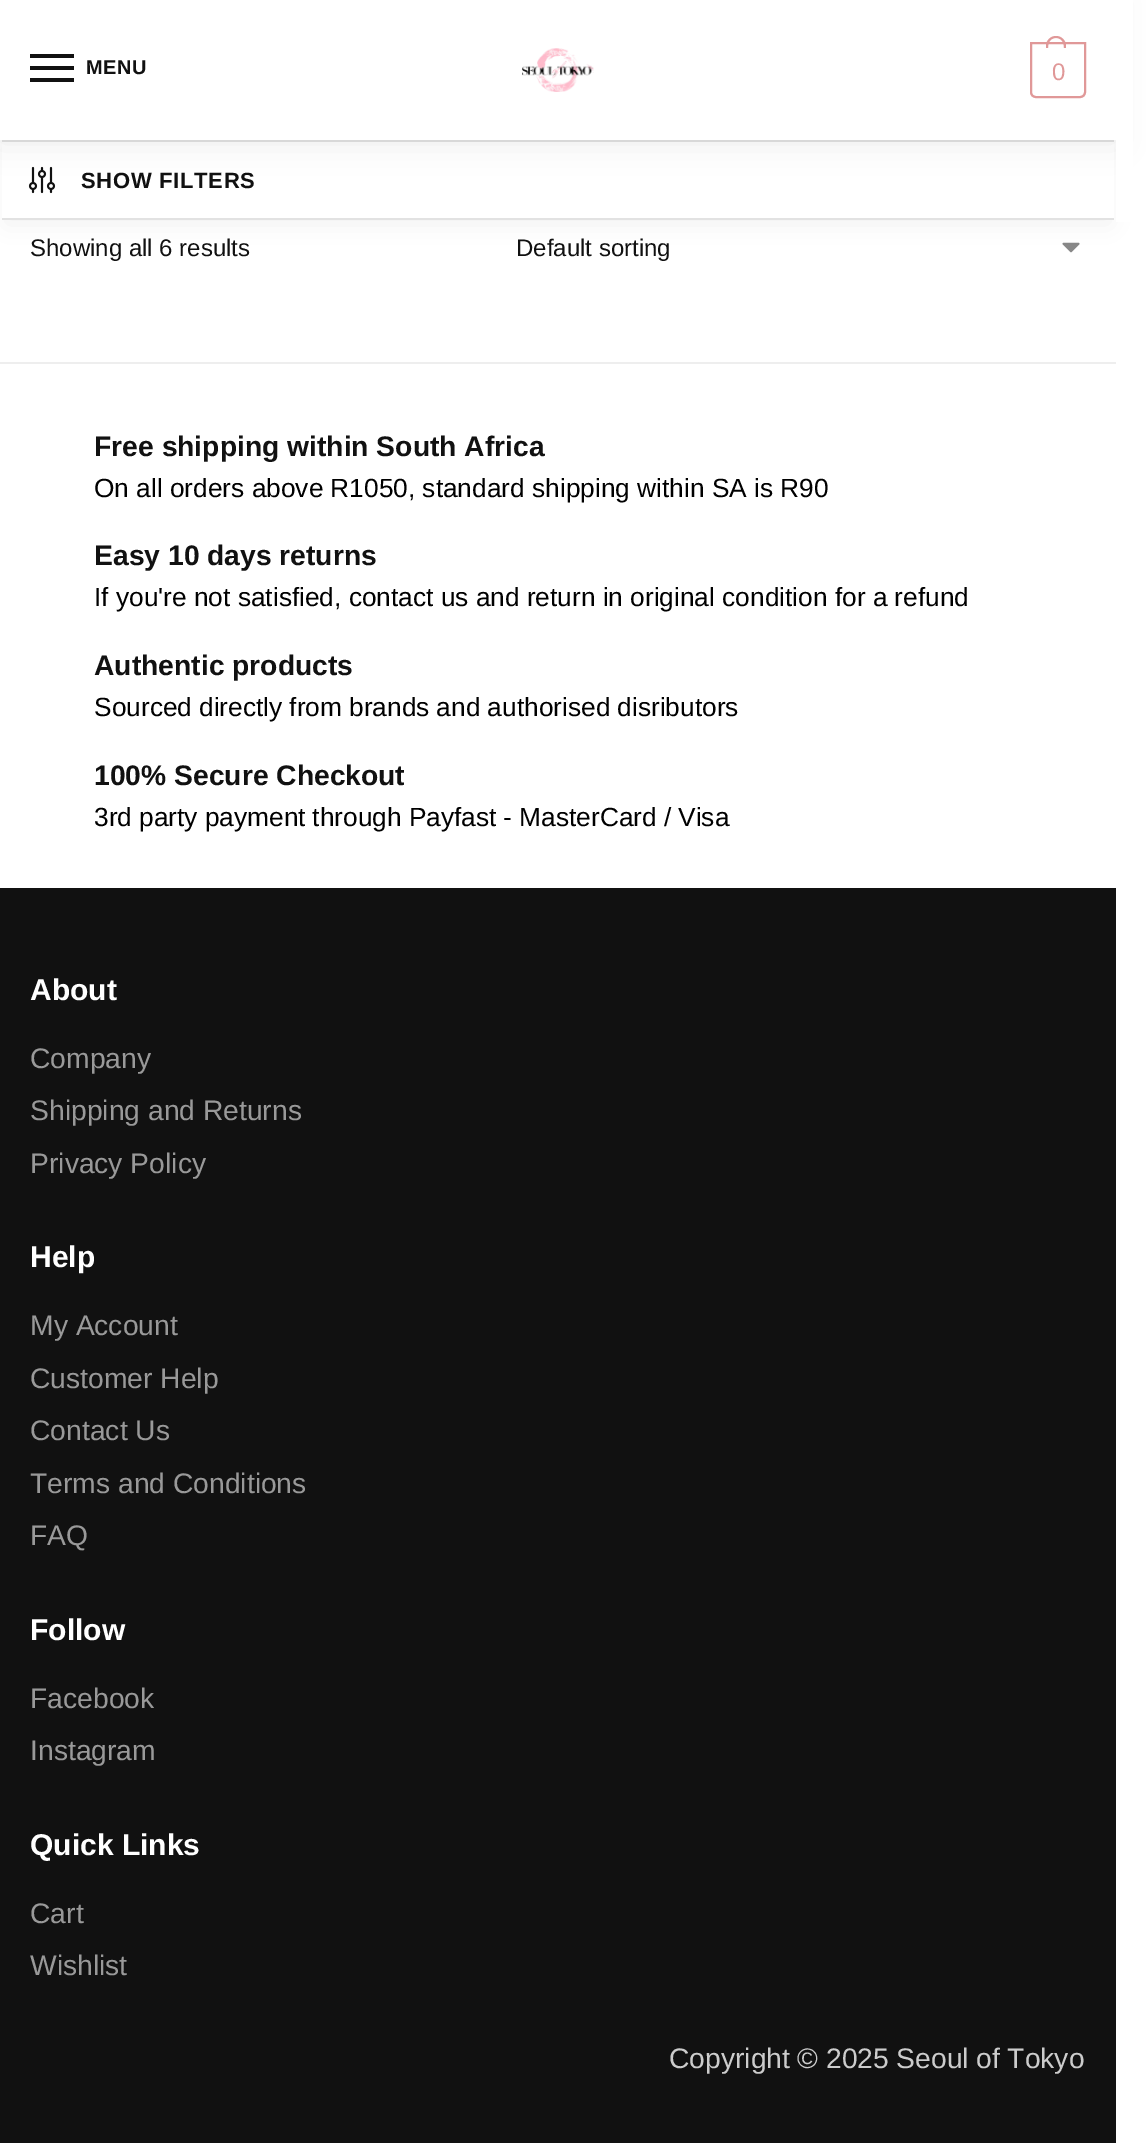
%!PS-Adobe-3.0
%%BoundingBox: 0 0 1146 2143
%%LanguageLevel: 3
%%Pages: 1
%%EndComments
%%BeginProlog
/setink { dup -16 bitshift 255 div exch dup -8 bitshift 255 and 255 div exch 255 and 255 div setrgbcolor } def
/usefont { [ exch dup neg 0 0 3 -1 roll 0 0 ] selectfont } def
/setalpha { dup .setfillconstantalpha .setstrokeconstantalpha } def
/rrect { 5 dict begin { /r /h /w /y /x } { exch def } forall
  x r add y moveto x w add y 2 copy h add r arct x w add y h add x 1 index r arct
  x y h add x y r arct x y 2 copy exch w add exch r arct closepath end } def
/softshadow { 12 dict begin { /a /b /q /h /w /y /x } { exch def } forall gsave /was 0 def
  9 -2 -9 { dup b mul 4 div /e exch def 1 sub .425 mul 2.718 exch exp 1 add a .99 .min exch div /now exch def
    1 1 now sub 1 was sub div sub setalpha /was now def
    w h .min e 2 mul add 0 gt { x e sub y e sub w e 2 mul add h e 2 mul add
      q e add b .6 mul add w h .min 2 div e add .min 0 .max rrect fill } if } for grestore end } def
/drawimage { 5 dict begin { /h /w /y /x /name } { exch def } forall
  gsave x y translate w h scale
  w h 8 [w 0 0 h 0 0] name (r) file false 3 colorimage grestore end } def
%%EndProlog
%%BeginSetup
<< /PageSize [1146 2143] /PageUsesTransparency true >> setpagedevice
%%EndSetup
%%Page: 1 1
0 .pushpdf14devicefilter
0 2143 translate 1 -1 scale
4 setmiterlimit
16#FFFFFF setink
0 0 1146 2143 rectfill
(img3.raw) 1062 242 18 11 drawimage
16#000000 setink
6 152 1104 72 0 12 0.06 softshadow
16#FFFFFF setink
2 142 1112 76 rectfill
16#E2E2E2 setink
2 140 1112 2 rectfill
(img2.raw) 28 166 28 28 drawimage
16#000000 setink
0 2 1116 140 0 15 0.08 softshadow
[
    [0 0 1116 140 16#FFFFFF]
    [30 54 44 4 16#111111]
    [30 66 44 4 16#111111]
] { aload pop setink rectfill } forall
/LiberationSans-Bold 20 usefont
86 74 moveto 0.5 0 (MENU) ashow
30 78 44 4 rectfill
(img1.raw) 522 48 72 44 drawimage
16#E09898 setink
2 setlinewidth
1031 43 moveto 1085 43 lineto 1085 92 lineto 1085 95 1083 97 1080 97 curveto 1036 97 lineto 1033 97 1031 95 1031 92 curveto closepath stroke
1056 36 moveto 1061.5 36 1066 40.5 1066 46 curveto 1066 48 lineto 1046 48 lineto 1046 46 lineto 1046 40.5 1050.5 36 1056 36 curveto closepath 1056 38 moveto 1062 38 1064 43 1064 48 curveto 1048 48 lineto 1048 43 1050 38 1056 38 curveto closepath eofill
/LiberationSans-Regular 24 usefont
1052 80 moveto -1 0 (0) ashow
16#FFFFFF setink
1116 0 17 222 rectfill
16#E2E2E2 setink
2 218 1112 2 rectfill
/LiberationSans-Bold 22 usefont
16#111111 setink
81 188 moveto 0.7 0 (SHOW FILTERS) ashow
/LiberationSans-Regular 24 usefont
30 256 moveto (Showing all 6 results) show
516 256 moveto (Default sorting) show
16#EEEEEE setink
0 362 1116 2 rectfill
/LiberationSans-Bold 28.25 usefont
16#111111 setink
94 456 moveto (Free shipping within South Africa) show
/LiberationSans-Regular 26.3 usefont
16#000000 setink
94 497 moveto -0.1 0 32 (On all orders above R1050, standard shipping within SA is R90) widthshow
/LiberationSans-Bold 28.25 usefont
16#111111 setink
94 565 moveto (Easy 10 days returns) show
/LiberationSans-Regular 26.3 usefont
16#000000 setink
94 606 moveto -0.1 0 32 (If you're not satisfied, contact us and return in original condition for a refund) widthshow
/LiberationSans-Bold 28.25 usefont
16#111111 setink
94 675 moveto (Authentic products) show
/LiberationSans-Regular 26.3 usefont
16#000000 setink
94 716 moveto -0.25 0 32 (Sourced directly from brands and authorised disributors) widthshow
/LiberationSans-Bold 28.25 usefont
16#111111 setink
94 785 moveto (100% Secure Checkout) show
/LiberationSans-Regular 26.3 usefont
16#000000 setink
94 826 moveto -0.25 0 32 (3rd party payment through Payfast - MasterCard / Visa) widthshow
16#111111 setink
0 888 1116 1255 rectfill
/LiberationSans-Bold 30 usefont
16#FFFFFF setink
30 1000 moveto (About) show
/LiberationSans-Regular 28.25 usefont
16#999999 setink
[
    [(Company) 30 1068]
    [(Shipping and Returns) 30 1120]
    [(Privacy Policy) 30 1173]
] { aload pop moveto show } forall
/LiberationSans-Bold 30 usefont
16#FFFFFF setink
30 1267 moveto (Help) show
/LiberationSans-Regular 28.25 usefont
16#999999 setink
[
    [(My Account) 30 1335]
    [(Customer Help) 30 1388]
    [(Contact Us) 30 1440]
    [(Terms and Conditions) 30 1493]
    [(FAQ) 30 1545]
] { aload pop moveto show } forall
/LiberationSans-Bold 30 usefont
16#FFFFFF setink
30 1640 moveto (Follow) show
/LiberationSans-Regular 28.25 usefont
16#999999 setink
30 1708 moveto (Facebook) show
30 1760 moveto (Instagram) show
/LiberationSans-Bold 30 usefont
16#FFFFFF setink
30 1855 moveto (Quick Links) show
/LiberationSans-Regular 28.25 usefont
16#999999 setink
30 1923 moveto (Cart) show
30 1975 moveto (Wishlist) show
16#CCCCCC setink
669 2068 moveto -0.25 0 32 (Copyright © 2025 Seoul of Tokyo) widthshow
.poppdf14devicefilter showpage
%%EOF
